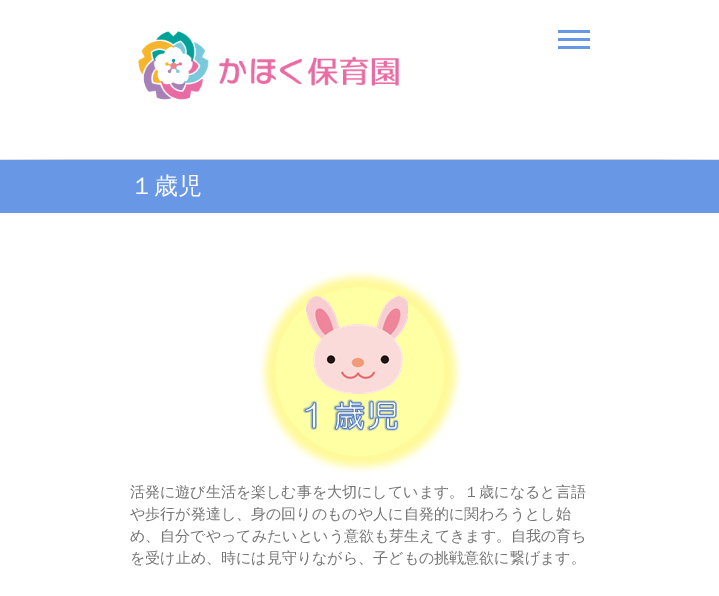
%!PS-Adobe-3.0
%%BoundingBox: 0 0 719 596
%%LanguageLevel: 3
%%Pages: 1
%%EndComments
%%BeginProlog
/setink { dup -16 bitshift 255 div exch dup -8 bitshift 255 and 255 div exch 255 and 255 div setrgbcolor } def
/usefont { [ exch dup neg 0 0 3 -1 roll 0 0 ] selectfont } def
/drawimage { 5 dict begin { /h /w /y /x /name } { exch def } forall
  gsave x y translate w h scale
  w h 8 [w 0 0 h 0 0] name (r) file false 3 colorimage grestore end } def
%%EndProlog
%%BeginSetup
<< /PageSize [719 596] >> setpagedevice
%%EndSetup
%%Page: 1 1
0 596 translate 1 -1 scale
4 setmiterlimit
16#FFFFFF setink
0 0 719 596 rectfill
(img1.raw) 138 31 261 69 drawimage
[
    [558 30 32 3 16#6897E5]
    [558 38 32 3 16#6897E5]
    [558 46 32 3 16#6897E5]
] { aload pop setink rectfill } forall
gsave 0 159 moveto 719 159 lineto 719 160 lineto 0 160 lineto closepath clip newpath
<< /ShadingType 2 /ColorSpace /DeviceRGB /Coords [0 160 719 159] /Extend [true true] /Function << /FunctionType 3 /Domain [0 1] /Functions [<< /FunctionType 2 /Domain [0 1] /C0 [0.902 0.902 0.902] /C1 [0.812 0.812 0.812] /N 1 >> << /FunctionType 2 /Domain [0 1] /C0 [0.812 0.812 0.812] /C1 [0.812 0.812 0.812] /N 1 >> << /FunctionType 2 /Domain [0 1] /C0 [0.812 0.812 0.812] /C1 [0.902 0.902 0.902] /N 1 >>] /Bounds [0.1 0.9] /Encode [0 1 0 1 0 1] >> >> shfill grestore
0 160 719 53 rectfill
/WenQuanYiZenHei-Medium 24 usefont
16#FFFFFF setink
130 194 moveto (１歳児) show
(img2.raw) 259 271 203 202 drawimage
/WenQuanYiZenHei-Medium 15 usefont
16#747474 setink
[
    [(活発に遊び生活を楽しむ事を大切にしています。１歳になると言語) 130 497]
    [(や歩行が発達し、身の回りのものや人に自発的に関わろうとし始) 130 519]
    [(め、自分でやってみたいという意欲も芽生えてきます。自我の育ち) 130 541]
    [(を受け止め、時には見守りながら、子どもの挑戦意欲に繋げます。) 130 563]
] { aload pop moveto show } forall
showpage
%%EOF
